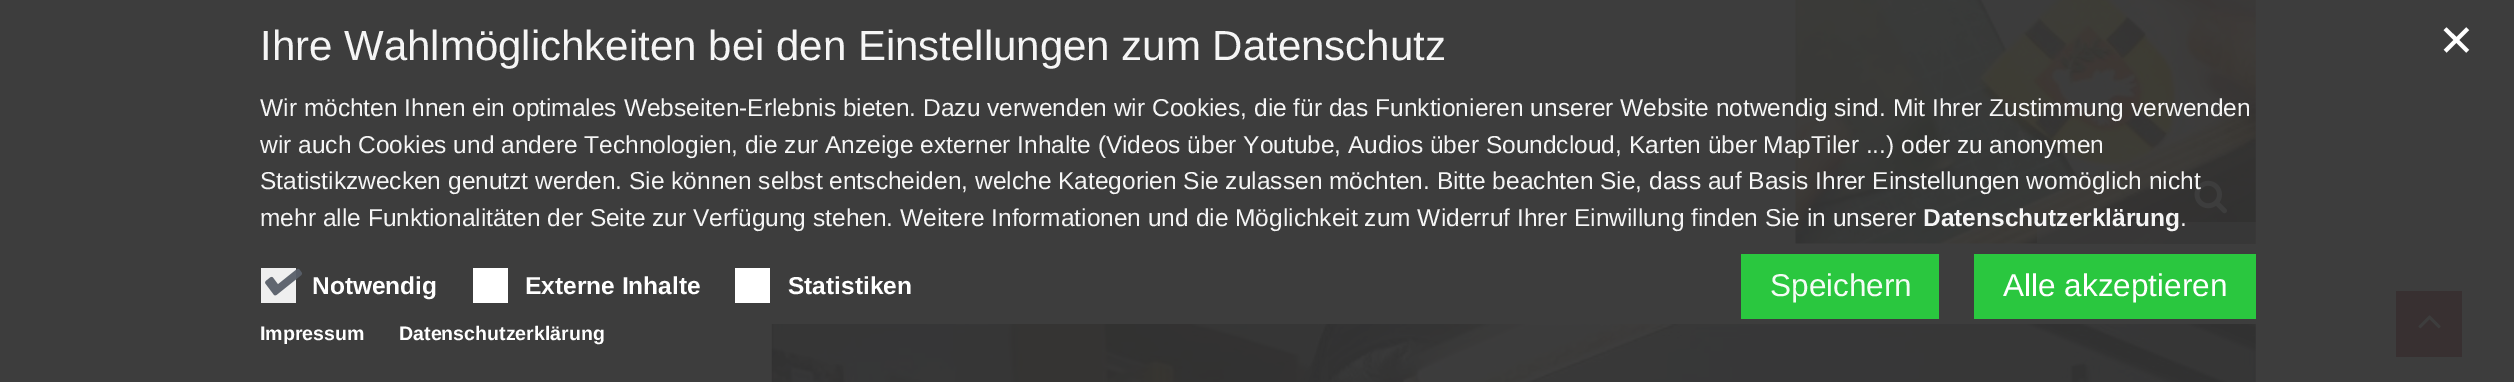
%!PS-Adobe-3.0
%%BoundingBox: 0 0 2514 382
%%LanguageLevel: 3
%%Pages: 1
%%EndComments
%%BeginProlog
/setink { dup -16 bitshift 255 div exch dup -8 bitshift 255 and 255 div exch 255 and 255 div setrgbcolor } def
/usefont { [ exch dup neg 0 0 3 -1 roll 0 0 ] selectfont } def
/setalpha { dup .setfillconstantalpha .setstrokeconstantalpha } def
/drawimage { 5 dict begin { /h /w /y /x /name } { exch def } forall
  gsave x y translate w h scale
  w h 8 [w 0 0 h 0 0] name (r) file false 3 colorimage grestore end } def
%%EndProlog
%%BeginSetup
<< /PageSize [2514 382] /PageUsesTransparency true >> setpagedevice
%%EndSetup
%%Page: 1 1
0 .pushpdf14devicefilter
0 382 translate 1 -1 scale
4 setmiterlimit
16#3D3D3D setink
0 0 2514 382 rectfill
(img1.raw) 1795 0 461 244 drawimage
(img2.raw) 2194 180 33 34 drawimage
0.48 setalpha
2037 222 219 21 rectfill
1 setalpha
(img3.raw) 771 324 1485 58 drawimage
/LiberationSans-Regular 42 usefont
16#F5F5F5 setink
260 60 moveto (Ihre Wahlmöglichkeiten bei den Einstellungen zum Datenschutz) show
/DejaVuSans-Regular 44 usefont
16#FFFFFF setink
2438 56 moveto (✕) show
/LiberationSans-Regular 24.5 usefont
16#F5F5F5 setink
[
    [(Wir möchten Ihnen ein optimales Webseiten-Erlebnis bieten. Dazu verwenden wir Cookies, die für das Funktionieren unserer Website notwendig sind. Mit Ihrer Zustimmung verwenden) 260 116]
    [(wir auch Cookies und andere Technologien, die zur Anzeige externer Inhalte \(Videos über Youtube, Audios über Soundcloud, Karten über MapTiler ...\) oder zu anonymen) 260 153]
    [(Statistikzwecken genutzt werden. Sie können selbst entscheiden, welche Kategorien Sie zulassen möchten. Bitte beachten Sie, dass auf Basis Ihrer Einstellungen womöglich nicht) 260 189]
    [(mehr alle Funktionalitäten der Seite zur Verfügung stehen. Weitere Informationen und die Möglichkeit zum Widerruf Ihrer Einwillung finden Sie in unserer) 260 226]
] { aload pop moveto show } forall
/LiberationSans-Bold 24.5 usefont
1923 226 moveto (Datenschutzerklärung) show
/LiberationSans-Regular 24.5 usefont
2180 226 moveto (.) show
16#EFEFEF setink
261 268 35 35 rectfill
(img4.raw) 265 268 37 28 drawimage
/LiberationSans-Bold 24.5 usefont
16#FFFFFF setink
312 294 moveto (Notwendig) show
473 268 35 35 rectfill
525 294 moveto (Externe Inhalte) show
735 268 35 35 rectfill
788 294 moveto (Statistiken) show
0.95 setalpha
16#29CE3F setink
1741 254 198 65 rectfill
/LiberationSans-Regular 31.5 usefont
1 setalpha
16#F4FCF5 setink
1770 296 moveto (Speichern) show
0.95 setalpha
16#29CE3F setink
1974 254 282 65 rectfill
1 setalpha
16#FFFFFF setink
2003 296 moveto (Alle akzeptieren) show
/LiberationSans-Bold 19.6 usefont
260 340 moveto (Impressum) show
399 340 moveto (Datenschutzerklärung) show
16#383031 setink
2396 291 66 66 rectfill
(img5.raw) 2418 315 23 14 drawimage
.poppdf14devicefilter showpage
%%EOF
